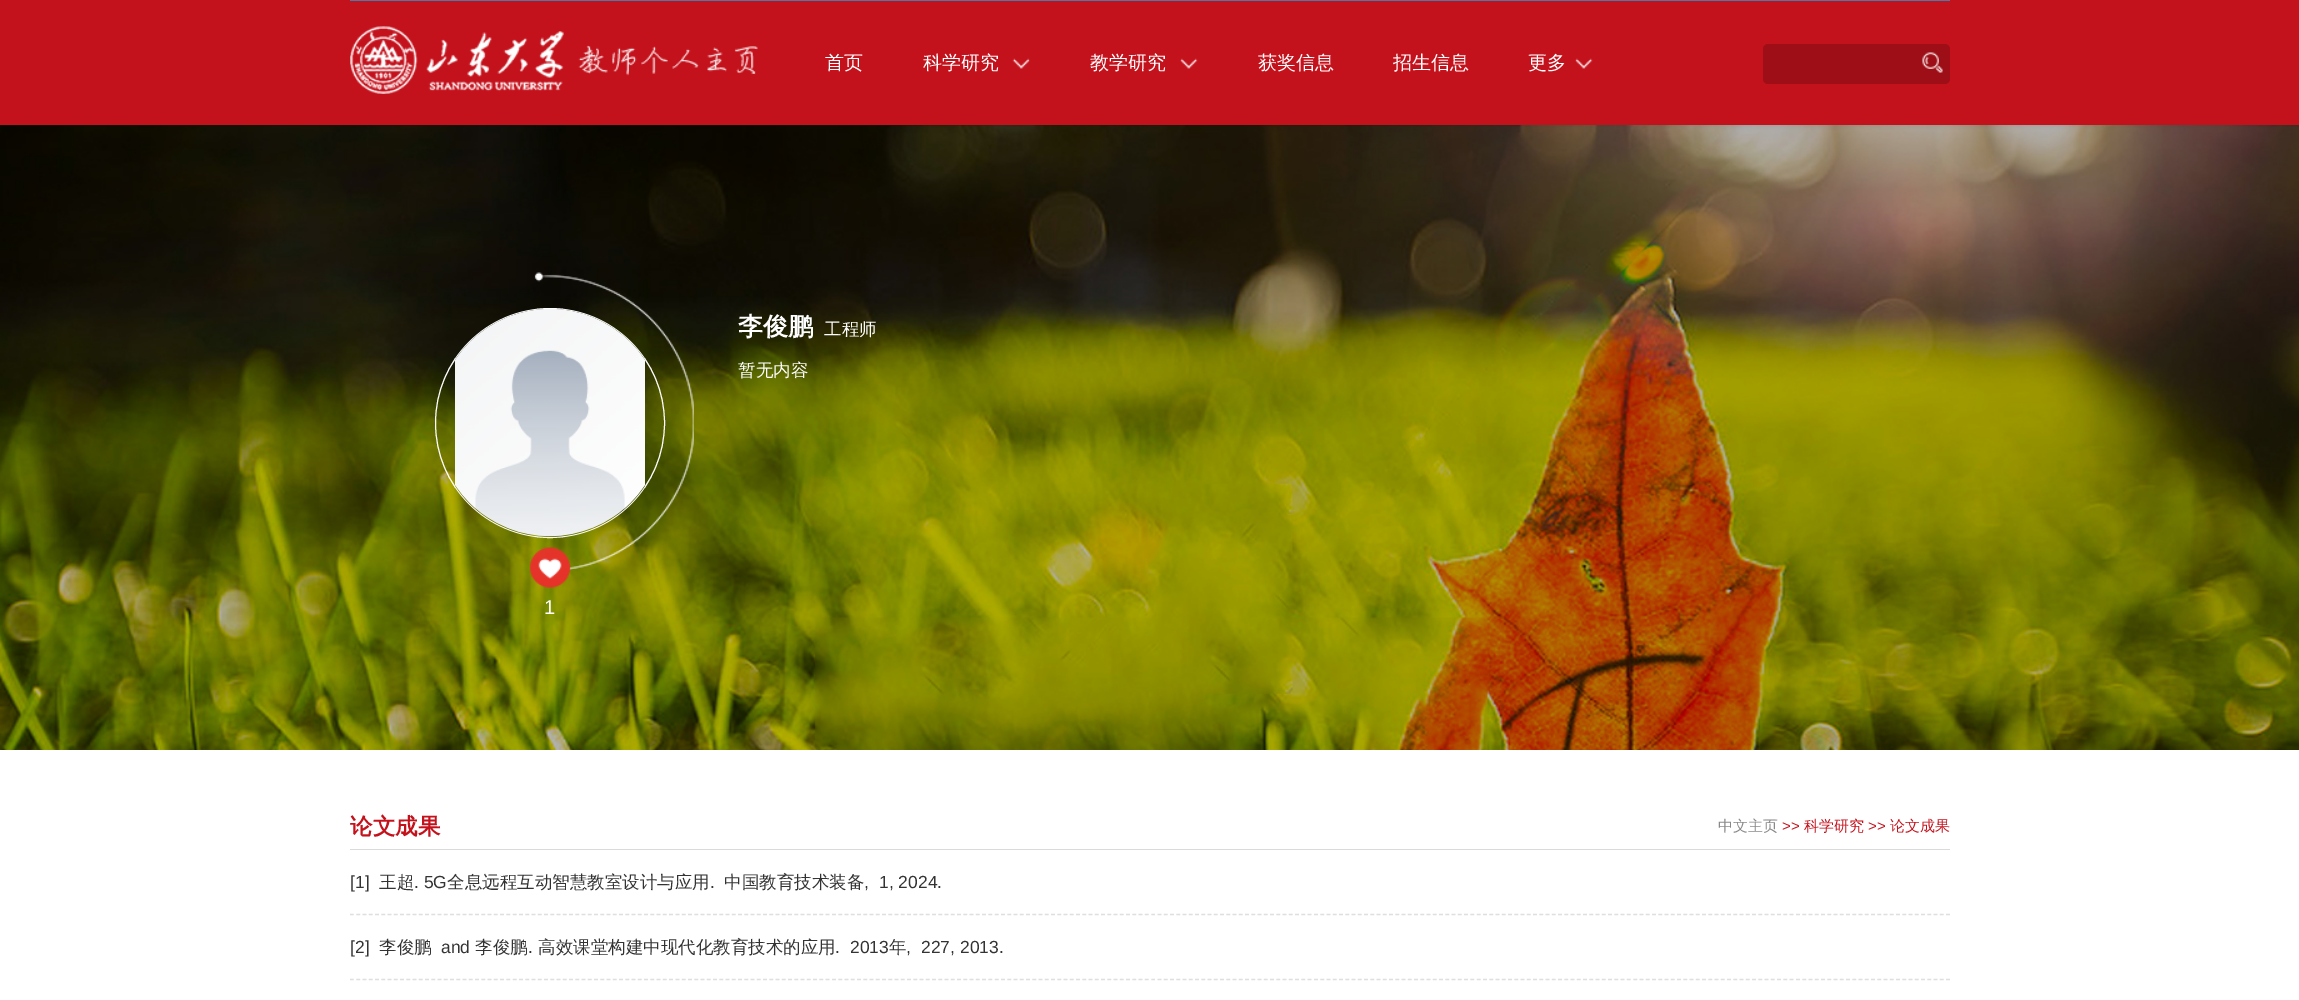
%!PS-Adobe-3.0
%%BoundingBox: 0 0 2299 1000
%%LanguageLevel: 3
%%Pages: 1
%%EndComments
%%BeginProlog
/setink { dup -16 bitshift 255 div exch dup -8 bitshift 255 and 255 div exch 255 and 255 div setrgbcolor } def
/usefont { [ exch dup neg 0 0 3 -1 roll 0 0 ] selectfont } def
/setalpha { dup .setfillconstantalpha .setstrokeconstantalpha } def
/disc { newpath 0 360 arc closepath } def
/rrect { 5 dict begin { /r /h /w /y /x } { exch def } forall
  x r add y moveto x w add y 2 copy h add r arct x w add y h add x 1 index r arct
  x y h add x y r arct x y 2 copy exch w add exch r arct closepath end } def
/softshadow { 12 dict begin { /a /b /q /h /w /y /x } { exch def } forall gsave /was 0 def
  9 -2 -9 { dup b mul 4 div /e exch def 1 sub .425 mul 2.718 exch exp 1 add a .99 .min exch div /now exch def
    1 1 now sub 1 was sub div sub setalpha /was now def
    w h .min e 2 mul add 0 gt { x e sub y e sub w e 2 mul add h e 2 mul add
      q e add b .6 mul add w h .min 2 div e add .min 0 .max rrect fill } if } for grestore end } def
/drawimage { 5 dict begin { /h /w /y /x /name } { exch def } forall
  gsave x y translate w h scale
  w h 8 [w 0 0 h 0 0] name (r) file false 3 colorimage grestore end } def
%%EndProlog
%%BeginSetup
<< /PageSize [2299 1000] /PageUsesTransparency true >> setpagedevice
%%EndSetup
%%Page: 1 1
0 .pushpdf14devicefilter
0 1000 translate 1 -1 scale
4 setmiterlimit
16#FFFFFF setink
0 0 2299 1000 rectfill
(img5.raw) 0 125 2299 625 drawimage
16#000000 setink
0 0 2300 125 0 2 0.13 softshadow
16#C4121D setink
0 0 2299 125 rectfill
16#497AAC setink
350 0 1600 1 rectfill
(img1.raw) 350 26 408 68 drawimage
/WenQuanYiZenHei-Medium 19 usefont
16#FFFFFF setink
825 69 moveto (首页) show
923 69 moveto (科学研究) show
(img2.raw) 1012 58 18 11 drawimage
1090 69 moveto (教学研究) show
(img3.raw) 1180 58 18 11 drawimage
[
    [(获奖信息) 1258 69]
    [(招生信息) 1393 69]
    [(更多) 1528 69]
] { aload pop moveto show } forall
(img3.raw) 1575 58 18 11 drawimage
16#9E0E16 setink
1763 44 187 40 5 rrect fill
(img4.raw) 1922 52 21 21 drawimage
/WenQuanYiZenHei-Bold 25 usefont
16#FFFFFF setink
738 335 moveto (李俊鹏) show
/WenQuanYiZenHei-Medium 17.5 usefont
824 335 moveto (工程师) show
738 376 moveto (暂无内容) show
(img6.raw) 529 272 165 316 drawimage
550 423 114.5 disc stroke
(img7.raw) 455 309 190 228 drawimage
/LiberationSans-Regular 20 usefont
544 614 moveto (1) show
16#DADADA setink
350 849 1600 1 rectfill
/WenQuanYiZenHei-Bold 22.5 usefont
16#C4121D setink
350 834 moveto (论文成果) show
/WenQuanYiZenHei-Medium 15 usefont
16#898989 setink
1718 831 moveto (中文主页) show
/LiberationSans-Regular 15 usefont
16#C4121D setink
1782 831 moveto (>>) show
/WenQuanYiZenHei-Medium 15 usefont
1804 831 moveto (科学研究) show
/LiberationSans-Regular 15 usefont
1868 831 moveto (>>) show
/WenQuanYiZenHei-Medium 15 usefont
1890 831 moveto (论文成果) show
16#DFDFDF setink
1.2 setlinewidth
[3.75 2.51] 0 setdash
350 914.5 moveto 1950 914.5 lineto stroke
/LiberationSans-Regular 17.5 usefont
16#333333 setink
350 888 moveto ([1]) show
/WenQuanYiZenHei-Medium 17.5 usefont
379 888 moveto (王超) show
/LiberationSans-Regular 17.5 usefont
414 888 moveto (. 5G) show
/WenQuanYiZenHei-Medium 17.5 usefont
447 888 moveto (全息远程互动智慧教室设计与应用) show
/LiberationSans-Regular 17.5 usefont
710 888 moveto (.) show
/WenQuanYiZenHei-Medium 17.5 usefont
724 888 moveto (中国教育技术装备) show
/LiberationSans-Regular 17.5 usefont
864 888 moveto (,) show
879 888 moveto (1, 2024.) show
16#DFDFDF setink
350 979.5 moveto 1950 979.5 lineto stroke
16#333333 setink
350 953 moveto ([2]) show
/WenQuanYiZenHei-Medium 17.5 usefont
379 953 moveto (李俊鹏) show
/LiberationSans-Regular 17.5 usefont
441 953 moveto (and) show
/WenQuanYiZenHei-Medium 17.5 usefont
475 953 moveto (李俊鹏) show
/LiberationSans-Regular 17.5 usefont
528 953 moveto (.) show
/WenQuanYiZenHei-Medium 17.5 usefont
538 953 moveto (高效课堂构建中现代化教育技术的应用) show
/LiberationSans-Regular 17.5 usefont
835 953 moveto (.) show
850 953 moveto (2013) show
/WenQuanYiZenHei-Medium 17.5 usefont
889 953 moveto (年) show
/LiberationSans-Regular 17.5 usefont
906 953 moveto (,) show
921 953 moveto (227, 2013.) show
.poppdf14devicefilter showpage
%%EOF
